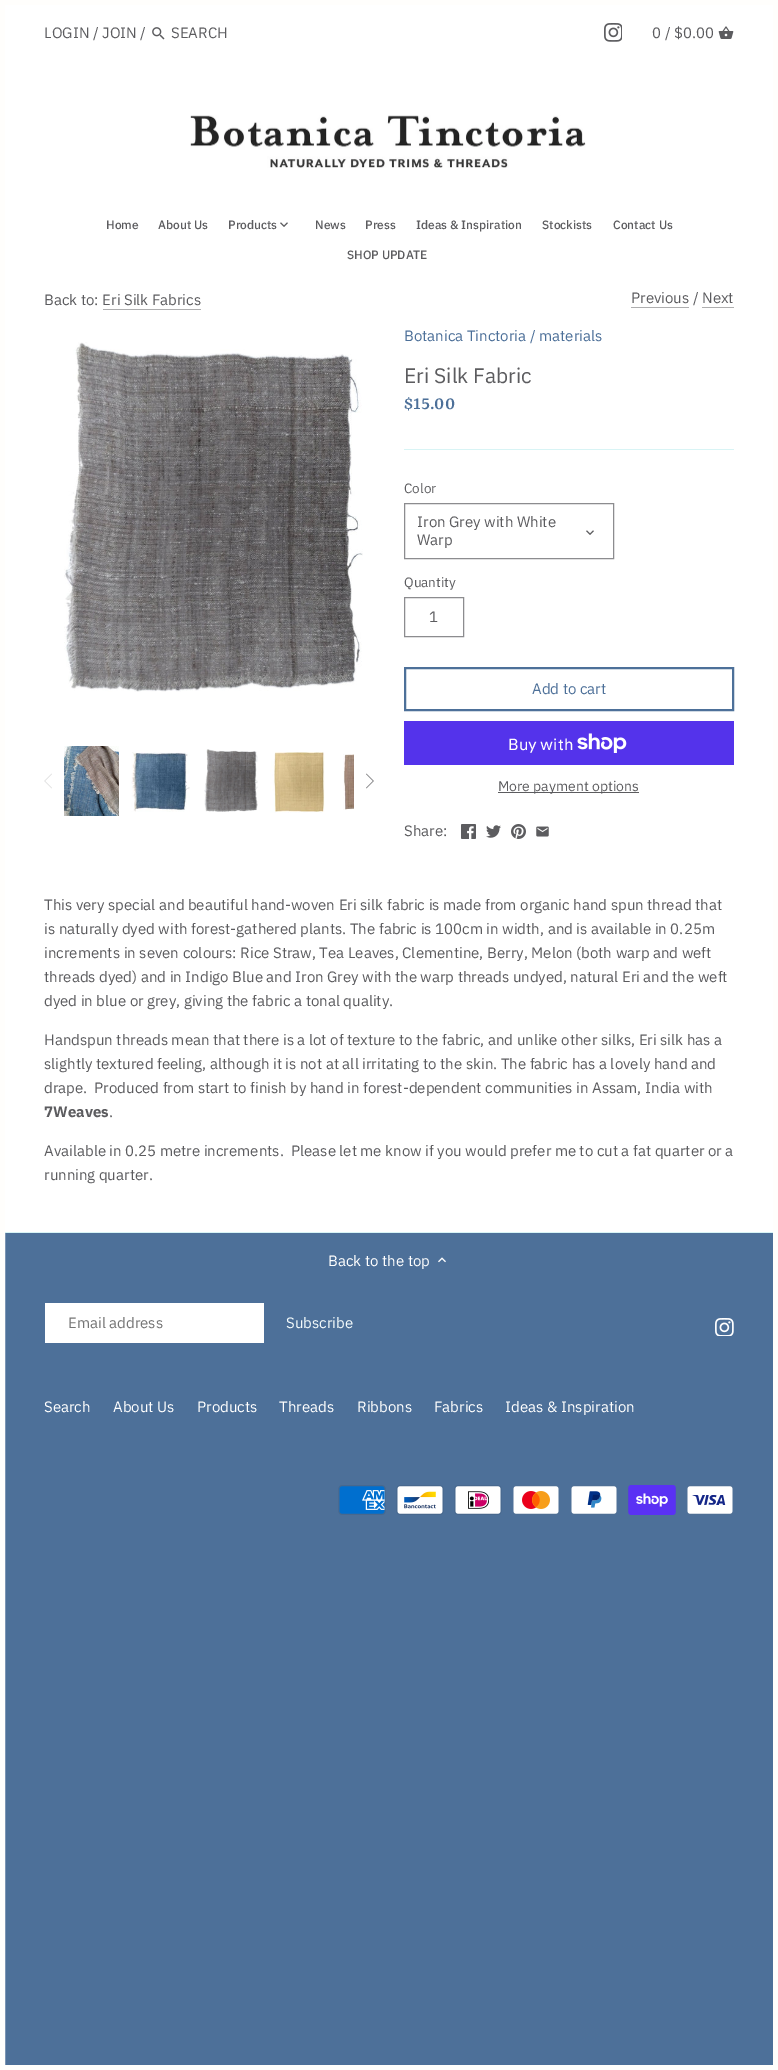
%!PS-Adobe-3.0
%%BoundingBox: 0 0 778 2070
%%LanguageLevel: 3
%%Pages: 1
%%EndComments
%%BeginProlog
/setink { dup -16 bitshift 255 div exch dup -8 bitshift 255 and 255 div exch 255 and 255 div setrgbcolor } def
/usefont { [ exch dup neg 0 0 3 -1 roll 0 0 ] selectfont } def
/drawimage { 5 dict begin { /h /w /y /x /name } { exch def } forall
  gsave x y translate w h scale
  w h 8 [w 0 0 h 0 0] name (r) file false 3 colorimage grestore end } def
%%EndProlog
%%BeginSetup
<< /PageSize [778 2070] >> setpagedevice
%%EndSetup
%%Page: 1 1
0 2070 translate 1 -1 scale
4 setmiterlimit
16#4D7099 setink
0 0 778 2070 rectfill
16#FFFEFC setink
5 setlinewidth
2.5 2.5 773 2065 rectstroke
16#FFFFFF setink
5 5 768 1227 rectfill
/IBMPlexSans-Regular 15 usefont
16#5C5C5F setink
44 38 moveto (LOGIN / JOIN /) show
(img1.raw) 152 27 13 13 drawimage
171 38 moveto (SEARCH) show
(img2.raw) 604 23 18 19 drawimage
652 38 moveto (0 / $0.00) show
(img3.raw) 718 26 16 13 drawimage
(img4.raw) 190 115 396 53 drawimage
/IBMPlexSans-Medium 12 usefont
[
    [(Home) 106 229]
    [(About Us) 158 229]
    [(Products) 228 229]
] { aload pop moveto show } forall
(img5.raw) 280 222 8 5 drawimage
[
    [(News) 315 229]
    [(Press) 365 229]
    [(Ideas & Inspiration) 416 229]
    [(Stockists) 542 229]
    [(Contact Us) 613 229]
    [(SHOP UPDATE) 347 259]
] { aload pop moveto show } forall
/IBMPlexSans-Regular 15 usefont
44 305 moveto (Back to: Eri Silk Fabrics) show
16#AEAEAF setink
103 309 98 1 rectfill
16#5C5C5F setink
631 303 moveto (Previous / Next) show
16#AEAEAF setink
631 307 58 1 rectfill
702 307 32 1 rectfill
(img6.raw) 64 342 299 350 drawimage
(img7.raw) 44 773 8 16 drawimage
(img8.raw) 64 746 55 70 drawimage
(img9.raw) 131 752 59 60 drawimage
(img10.raw) 204 749 54 63 drawimage
(img11.raw) 270 752 55 61 drawimage
(img12.raw) 343 754 11 56 drawimage
(img13.raw) 366 773 8 16 drawimage
16#D8F4F5 setink
404 449 330 1 rectfill
16#4D7099 setink
404 341 moveto (Botanica Tinctoria / materials) show
/IBMPlexSans-Regular 21 usefont
16#5C5C5F setink
404 383 moveto (Eri Silk Fabric) show
/Rasa-Medium 21 usefont
16#4D7099 setink
404 409 moveto ($15.00) show
/IBMPlexSans-Regular 13.5 usefont
16#5C5C5F setink
404 493 moveto (Color) show
16#8C8C8F setink
1 setlinewidth
404.5 503.5 209 55 rectstroke
/IBMPlexSans-Regular 15 usefont
16#5C5C5F setink
417 527 moveto (Iron Grey with White) show
417 545 moveto (Warp) show
(img5.raw) 586 530 8 5 drawimage
/IBMPlexSans-Regular 13.5 usefont
404 587 moveto (Quantity) show
16#8C8C8F setink
404.5 597.5 59 39 rectstroke
/IBMPlexSans-Regular 15 usefont
16#5C5C5F setink
429 622 moveto (1) show
16#4D7099 setink
2 setlinewidth
405 668 328 42 rectstroke
532 694 moveto (Add to cart) show
16#5433EB setink
404 721 330 44 rectfill
/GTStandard-Regular 16 usefont
16#FFFFFF setink
508 750 moveto (Buy with) show
(img14.raw) 577 733 50 20 drawimage
16#5C5C5F setink
498 792 141 1 rectfill
/IBMPlexSans-Regular 14 usefont
498 791 moveto (More payment options) show
/IBMPlexSans-Regular 15 usefont
404 836 moveto (Share:) show
(img15.raw) 461 824 15 15 drawimage
(img16.raw) 486 825 15 13 drawimage
(img17.raw) 511 824 15 15 drawimage
(img18.raw) 536 826 13 11 drawimage
[
    [(This very special and beautiful hand-woven Eri silk fabric is made from organic hand spun thread that) 44 910]
    [(is naturally dyed with forest-gathered plants. The fabric is 100cm in width, and is available in 0.25m) 44 934]
    [(increments in seven colours: Rice Straw, Tea Leaves, Clementine, Berry, Melon \(both warp and weft) 44 958]
    [(threads dyed\) and in Indigo Blue and Iron Grey with the warp threads undyed, natural Eri and the weft) 44 982]
    [(dyed in blue or grey, giving the fabric a tonal quality.) 44 1006]
    [(Handspun threads mean that there is a lot of texture to the fabric, and unlike other silks, Eri silk has a) 44 1045]
    [(slightly textured feeling, although it is not at all irritating to the skin. The fabric has a lovely hand and) 44 1069]
    [(drape.  Produced from start to finish by hand in forest-dependent communities in Assam, India with) 44 1093]
] { aload pop moveto show } forall
/IBMPlexSans-Bold 15 usefont
44 1117 moveto (7Weaves) show
/IBMPlexSans-Regular 15 usefont
[
    [(.) 109 1117]
    [(Available in 0.25 metre increments.  Please let me know if you would prefer me to cut a fat quarter or a) 44 1156]
    [(running quarter.) 44 1180]
] { aload pop moveto show } forall
16#D8F4F5 setink
5 1232 768 1 rectfill
16#FFFFFF setink
328 1266 moveto (Back to the top) show
(img19.raw) 438 1257 8 6 drawimage
45 1303 219 40 rectfill
16#757575 setink
68 1328 moveto (Email address) show
16#F4FBFC setink
286 1328 moveto (Subscribe) show
(img20.raw) 715 1318 19 18 drawimage
16#FFFFFF setink
[
    [(Search) 44 1412]
    [(About Us) 113 1412]
    [(Products) 197 1412]
    [(Threads) 279 1412]
    [(Ribbons) 357 1412]
    [(Fabrics) 434 1412]
    [(Ideas & Inspiration) 505 1412]
] { aload pop moveto show } forall
(img21.raw) 338 1485 48 30 drawimage
(img22.raw) 396 1485 48 30 drawimage
(img23.raw) 454 1485 48 30 drawimage
(img24.raw) 513 1485 46 30 drawimage
(img25.raw) 571 1485 46 30 drawimage
(img26.raw) 628 1485 48 30 drawimage
(img27.raw) 687 1485 46 30 drawimage
showpage
%%EOF
